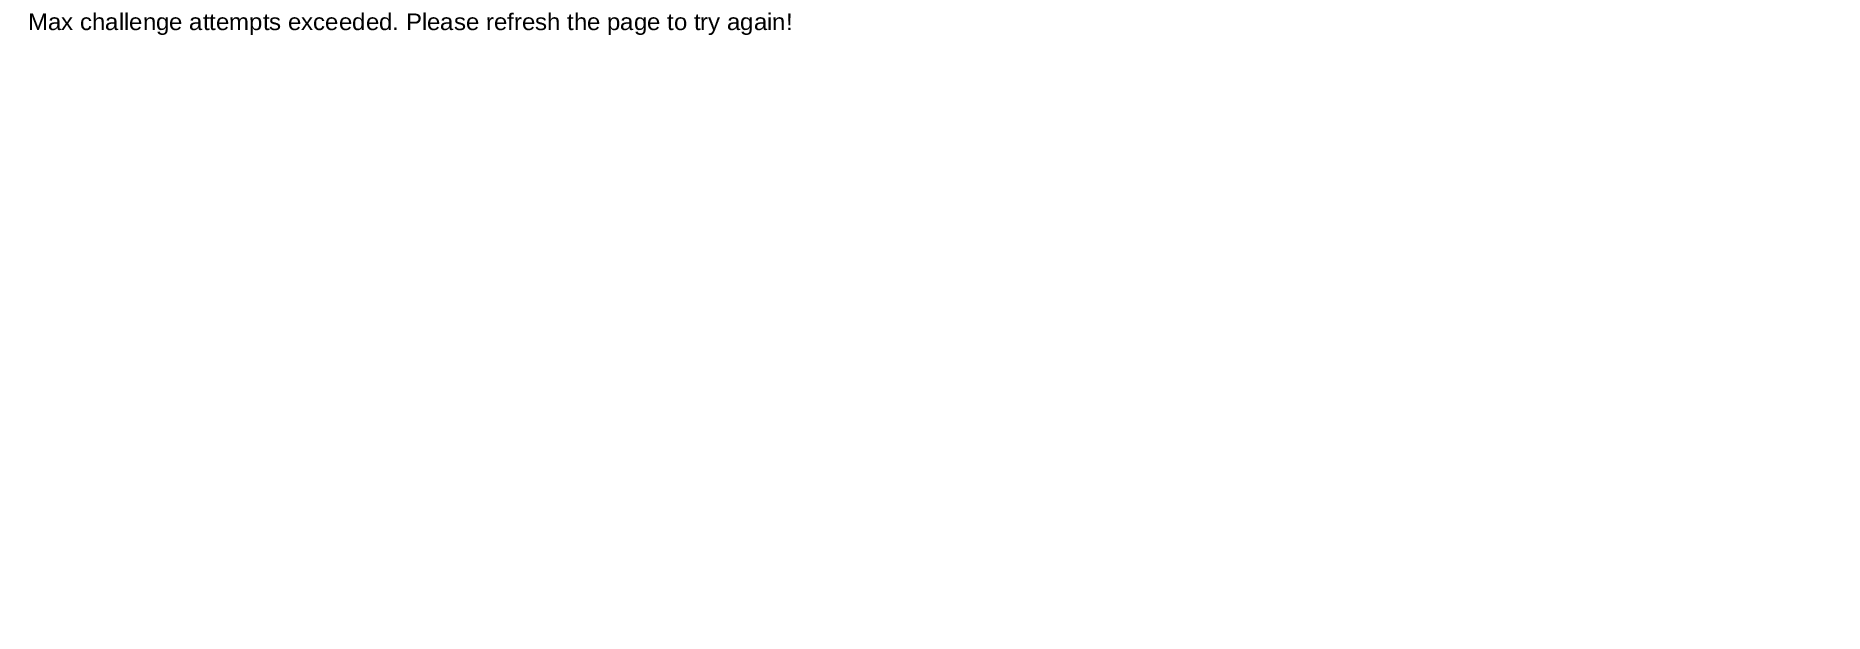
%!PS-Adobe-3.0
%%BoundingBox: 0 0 1860 649
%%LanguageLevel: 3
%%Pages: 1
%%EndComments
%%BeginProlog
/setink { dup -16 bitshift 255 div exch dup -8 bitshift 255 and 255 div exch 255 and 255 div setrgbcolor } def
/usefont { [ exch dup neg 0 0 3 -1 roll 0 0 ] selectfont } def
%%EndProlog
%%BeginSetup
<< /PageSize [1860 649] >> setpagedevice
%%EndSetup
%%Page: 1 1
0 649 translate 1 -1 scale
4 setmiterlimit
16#FFFFFF setink
0 0 1860 649 rectfill
/LiberationSans-Regular 24 usefont
16#000000 setink
28 30 moveto (Max challenge attempts exceeded. Please refresh the page to try again!) show
showpage
%%EOF
